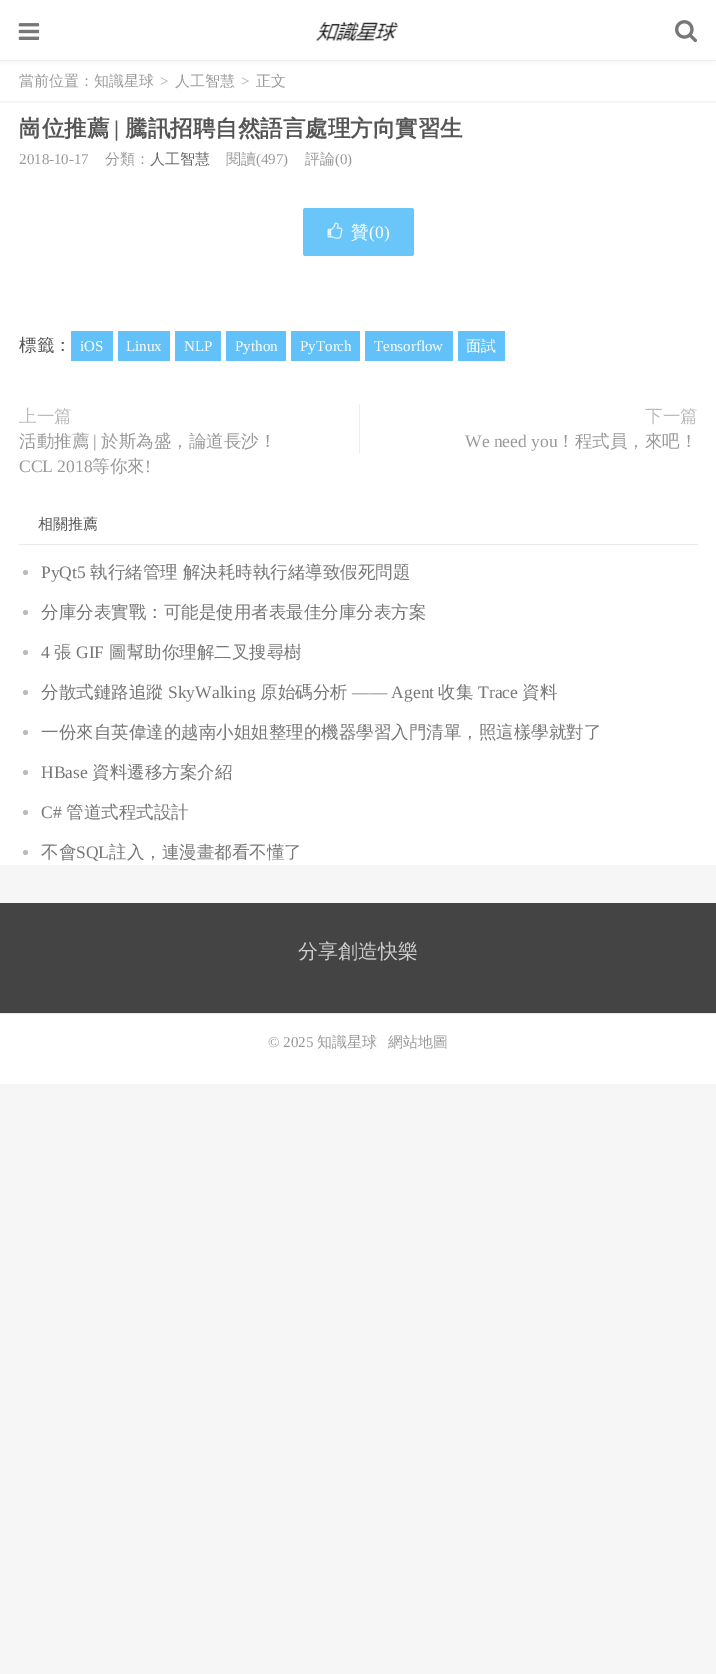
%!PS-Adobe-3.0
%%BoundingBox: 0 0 716 1674
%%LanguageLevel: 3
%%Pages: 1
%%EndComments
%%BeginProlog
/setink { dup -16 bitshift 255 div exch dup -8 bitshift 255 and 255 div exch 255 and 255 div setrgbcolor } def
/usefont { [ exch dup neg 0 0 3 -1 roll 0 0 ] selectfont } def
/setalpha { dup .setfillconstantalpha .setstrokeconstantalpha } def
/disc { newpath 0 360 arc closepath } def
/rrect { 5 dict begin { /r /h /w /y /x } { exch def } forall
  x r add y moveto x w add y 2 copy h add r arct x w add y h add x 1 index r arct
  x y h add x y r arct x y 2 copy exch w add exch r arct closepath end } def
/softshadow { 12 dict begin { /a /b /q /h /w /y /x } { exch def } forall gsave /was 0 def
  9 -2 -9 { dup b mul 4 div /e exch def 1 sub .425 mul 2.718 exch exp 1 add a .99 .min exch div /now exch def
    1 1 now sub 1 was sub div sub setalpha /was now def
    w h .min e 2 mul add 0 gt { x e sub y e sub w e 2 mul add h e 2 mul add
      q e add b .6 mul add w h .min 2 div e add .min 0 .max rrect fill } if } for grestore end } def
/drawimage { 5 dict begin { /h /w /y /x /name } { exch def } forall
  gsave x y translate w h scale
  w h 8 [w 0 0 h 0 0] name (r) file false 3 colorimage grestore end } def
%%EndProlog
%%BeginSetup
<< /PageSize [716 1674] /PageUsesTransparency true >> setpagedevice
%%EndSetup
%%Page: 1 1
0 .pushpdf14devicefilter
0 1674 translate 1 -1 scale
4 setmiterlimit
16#F6F6F6 setink
0 0 716 1674 rectfill
16#FFFFFF setink
0 61 716 40 rectfill
16#000000 setink
0 1 716 60 0 3 0.05 softshadow
16#FFFFFF setink
0 0 716 60 rectfill
(img1.raw) 18 23 22 17 drawimage
(img2.raw) 316 22 83 20 drawimage
(img3.raw) 675 20 22 23 drawimage
/WenQuanYiZenHei-Medium 15 usefont
16#999999 setink
19 86 moveto (當前位置：知識星球) show
/LiberationSerif-Bold 15 usefont
16#BBBBBB setink
160 86 moveto (>) show
/WenQuanYiZenHei-Medium 15 usefont
16#999999 setink
175 86 moveto (人工智慧) show
/LiberationSerif-Bold 15 usefont
16#BBBBBB setink
241 86 moveto (>) show
/WenQuanYiZenHei-Medium 15 usefont
16#999999 setink
256 86 moveto (正文) show
16#FFFFFF setink
0 103 716 762 rectfill
/WenQuanYiZenHei-Bold 22.5 usefont
16#555555 setink
19 136 moveto (崗位推薦) show
/LiberationSerif-Bold 22.5 usefont
114 136 moveto (|) show
/WenQuanYiZenHei-Bold 22.5 usefont
125 136 moveto (騰訊招聘自然語言處理方向實習生) show
/LiberationSerif-Regular 15 usefont
16#999999 setink
19 164 moveto (2018-10-17) show
/WenQuanYiZenHei-Medium 15 usefont
105 164 moveto (分類：) show
16#666666 setink
150 164 moveto (人工智慧) show
16#999999 setink
226 164 moveto (閱讀) show
/LiberationSerif-Regular 15 usefont
256 164 moveto (\(497\)) show
/WenQuanYiZenHei-Medium 15 usefont
305 164 moveto (評論) show
/LiberationSerif-Regular 15 usefont
335 164 moveto (\(0\)) show
16#6AC5F9 setink
303 208 111 48 2.5 rrect fill
(img4.raw) 327 222 16 17 drawimage
/WenQuanYiZenHei-Medium 17.5 usefont
16#FFFFFF setink
351 238 moveto (贊) show
/LiberationSerif-Regular 17.5 usefont
369 238 moveto (\(0\)) show
/WenQuanYiZenHei-Medium 17.5 usefont
16#555555 setink
19 351 moveto (標籤：) show
16#61C1F8 setink
71 331 42 30 rectfill
/LiberationSerif-Regular 15 usefont
16#FFFFFF setink
80 351 moveto (iOS) show
16#61C1F8 setink
118 331 52 30 rectfill
16#FFFFFF setink
126 351 moveto (Linux) show
16#61C1F8 setink
175 331 46 30 rectfill
16#FFFFFF setink
184 351 moveto (NLP) show
16#61C1F8 setink
226 331 60 30 rectfill
16#FFFFFF setink
235 351 moveto (Python) show
16#61C1F8 setink
291 331 69 30 rectfill
16#FFFFFF setink
300 351 moveto (PyTorch) show
16#61C1F8 setink
365 331 88 30 rectfill
16#FFFFFF setink
374 351 moveto (Tensorflow) show
16#61C1F8 setink
458 331 47 30 rectfill
/WenQuanYiZenHei-Medium 15 usefont
16#FFFFFF setink
466 351 moveto (面試) show
/WenQuanYiZenHei-Medium 17.5 usefont
16#BBBBBB setink
19 422 moveto (上一篇) show
16#999999 setink
19 447 moveto (活動推薦) show
/LiberationSerif-Regular 17.5 usefont
93 447 moveto (|) show
/WenQuanYiZenHei-Medium 17.5 usefont
101 447 moveto (於斯為盛，論道長沙！) show
/LiberationSerif-Regular 17.5 usefont
19 472 moveto (CCL 2018) show
/WenQuanYiZenHei-Medium 17.5 usefont
92 472 moveto (等你來) show
/LiberationSerif-Regular 17.5 usefont
145 472 moveto (!) show
16#EEEEEE setink
359 404 1 50 rectfill
/WenQuanYiZenHei-Medium 17.5 usefont
16#BBBBBB setink
645 422 moveto (下一篇) show
/LiberationSerif-Regular 17.5 usefont
16#999999 setink
465 447 moveto (We need you) show
/WenQuanYiZenHei-Medium 17.5 usefont
557 447 moveto (！程式員，來吧！) show
16#EAEAEA setink
19 544 679 1 rectfill
/WenQuanYiZenHei-Medium 15 usefont
16#555555 setink
38 529 moveto (相關推薦) show
16#BBBBBB setink
25.5 572.5 2.5 disc fill
/LiberationSerif-Regular 17.5 usefont
16#777777 setink
41 578 moveto (PyQt5) show
/WenQuanYiZenHei-Medium 17.5 usefont
90 578 moveto (執行緒管理 解決耗時執行緒導致假死問題) show
16#BBBBBB setink
25.5 612.5 2.5 disc fill
16#777777 setink
41 618 moveto (分庫分表實戰：可能是使用者表最佳分庫分表方案) show
16#BBBBBB setink
25.5 652.5 2.5 disc fill
/LiberationSerif-Regular 17.5 usefont
16#777777 setink
41 658 moveto (4) show
/WenQuanYiZenHei-Medium 17.5 usefont
54 658 moveto (張) show
/LiberationSerif-Regular 17.5 usefont
76 658 moveto (GIF) show
/WenQuanYiZenHei-Medium 17.5 usefont
109 658 moveto (圖幫助你理解二叉搜尋樹) show
16#BBBBBB setink
25.5 692.5 2.5 disc fill
16#777777 setink
41 698 moveto (分散式鏈路追蹤) show
/LiberationSerif-Regular 17.5 usefont
168 698 moveto (SkyWalking) show
/WenQuanYiZenHei-Medium 17.5 usefont
260 698 moveto (原始碼分析) show
/LiberationSerif-Regular 17.5 usefont
352 698 moveto (—— Agent) show
/WenQuanYiZenHei-Medium 17.5 usefont
438 698 moveto (收集) show
/LiberationSerif-Regular 17.5 usefont
478 698 moveto (Trace) show
/WenQuanYiZenHei-Medium 17.5 usefont
522 698 moveto (資料) show
16#BBBBBB setink
25.5 732.5 2.5 disc fill
16#777777 setink
41 738 moveto (一份來自英偉達的越南小姐姐整理的機器學習入門清單，照這樣學就對了) show
16#BBBBBB setink
25.5 772.5 2.5 disc fill
/LiberationSerif-Regular 17.5 usefont
16#777777 setink
41 778 moveto (HBase) show
/WenQuanYiZenHei-Medium 17.5 usefont
92 778 moveto (資料遷移方案介紹) show
16#BBBBBB setink
25.5 812.5 2.5 disc fill
/LiberationSerif-Regular 17.5 usefont
16#777777 setink
41 818 moveto (C#) show
/WenQuanYiZenHei-Medium 17.5 usefont
66 818 moveto (管道式程式設計) show
16#BBBBBB setink
25.5 852.5 2.5 disc fill
16#777777 setink
41 858 moveto (不會) show
/LiberationSerif-Regular 17.5 usefont
76 858 moveto (SQL) show
/WenQuanYiZenHei-Medium 17.5 usefont
109 858 moveto (註入，連漫畫都看不懂了) show
16#444444 setink
0 903 716 110 rectfill
/WenQuanYiZenHei-Medium 20 usefont
16#CCCCCC setink
298 958 moveto (分享創造快樂) show
16#FFFFFF setink
0 1014 716 70 rectfill
16#EAEAEA setink
0 1013 716 1 rectfill
/LiberationSerif-Regular 15 usefont
16#999999 setink
268 1047 moveto (© 2025) show
/WenQuanYiZenHei-Medium 15 usefont
317 1047 moveto (知識星球) show
388 1047 moveto (網站地圖) show
.poppdf14devicefilter showpage
%%EOF
